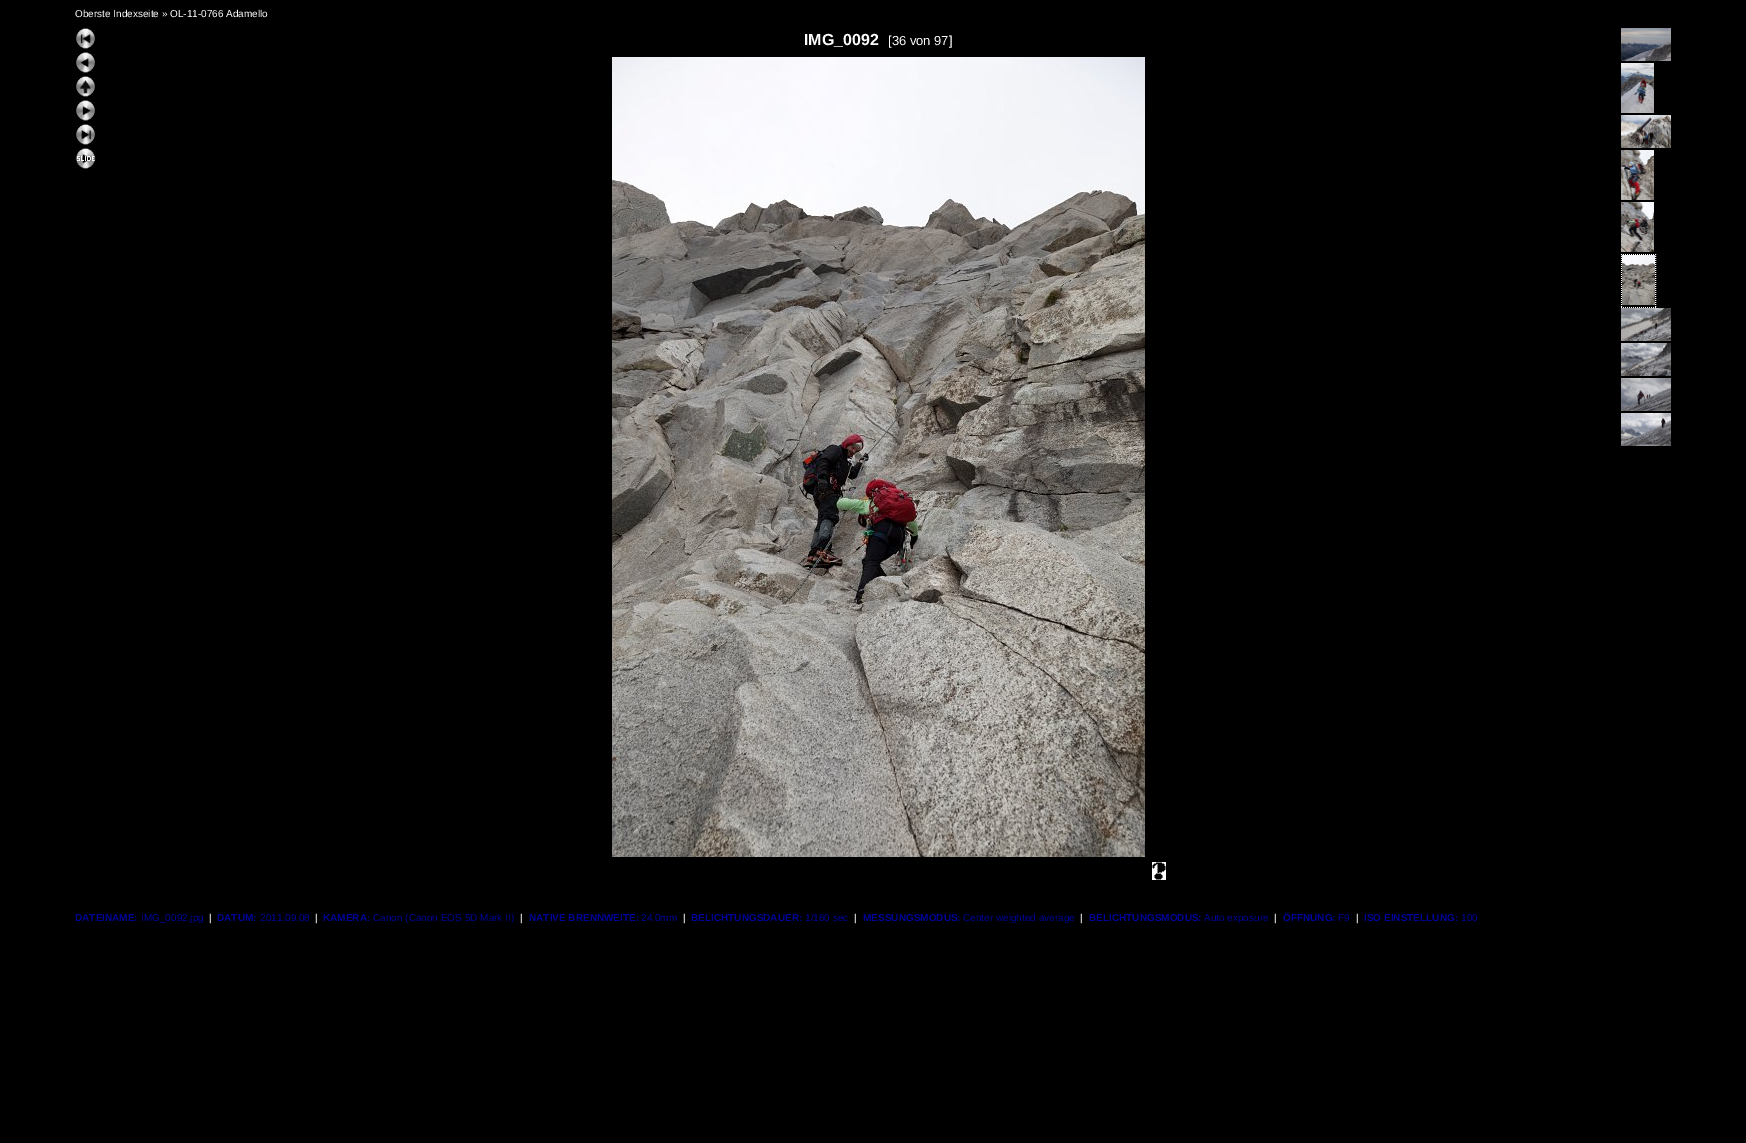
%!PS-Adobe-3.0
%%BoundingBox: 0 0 1746 1143
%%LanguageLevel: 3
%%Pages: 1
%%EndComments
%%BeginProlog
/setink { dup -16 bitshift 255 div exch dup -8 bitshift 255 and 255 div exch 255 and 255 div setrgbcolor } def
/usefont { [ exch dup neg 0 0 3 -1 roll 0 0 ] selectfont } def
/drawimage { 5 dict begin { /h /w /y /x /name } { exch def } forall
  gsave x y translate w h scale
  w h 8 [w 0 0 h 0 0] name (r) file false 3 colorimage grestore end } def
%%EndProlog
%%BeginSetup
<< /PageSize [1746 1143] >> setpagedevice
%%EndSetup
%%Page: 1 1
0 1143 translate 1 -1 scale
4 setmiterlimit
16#000000 setink
0 0 1746 1143 rectfill
/LiberationSans-Regular 10 usefont
16#FFFFFF setink
75 17 moveto (Oberste Indexseite » OL-11-0766 Adamello) show
(img1.raw) 76 28 19 21 drawimage
(img2.raw) 76 52 19 21 drawimage
(img3.raw) 76 76 19 21 drawimage
(img4.raw) 76 100 19 21 drawimage
(img5.raw) 76 124 19 21 drawimage
(img6.raw) 75 148 21 21 drawimage
/LiberationSans-Bold 16 usefont
804 45 moveto (IMG_0092) show
/LiberationSans-Regular 13 usefont
888 45 moveto ([36 von 97]) show
(img7.raw) 612 57 533 800 drawimage
(img8.raw) 1152 862 14 18 drawimage
(img9.raw) 1621 28 50 33 drawimage
(img10.raw) 1621 63 33 50 drawimage
(img11.raw) 1621 115 50 33 drawimage
(img12.raw) 1621 150 33 50 drawimage
(img13.raw) 1621 202 33 50 drawimage
[1 1] 0 setdash
1621 254.5 moveto 1656 254.5 lineto 1655.5 254 moveto 1655.5 308 lineto 1621 307.5 moveto 1656 307.5 lineto 1621.5 254 moveto 1621.5 308 lineto stroke
(img14.raw) 1622 255 33 50 drawimage
(img15.raw) 1621 308 50 33 drawimage
(img16.raw) 1621 343 50 33 drawimage
(img17.raw) 1621 378 50 33 drawimage
(img18.raw) 1621 413 50 33 drawimage
/LiberationSans-Bold 10 usefont
16#000099 setink
75 921 moveto (DATEINAME:) show
/LiberationSans-Regular 10 usefont
141 921 moveto (IMG_0092.jpg) show
/LiberationSans-Bold 10 usefont
16#C0C0C0 setink
209 921 moveto (|) show
16#000099 setink
217 921 moveto (DATUM:) show
/LiberationSans-Regular 10 usefont
260 921 moveto (2011.09.08) show
/LiberationSans-Bold 10 usefont
16#C0C0C0 setink
315 921 moveto (|) show
16#000099 setink
323 921 moveto (KAMERA:) show
/LiberationSans-Regular 10 usefont
373 921 moveto (Canon \(Canon EOS 5D Mark II\)) show
/LiberationSans-Bold 10 usefont
16#C0C0C0 setink
520 921 moveto (|) show
16#000099 setink
529 921 moveto (NATIVE BRENNWEITE:) show
/LiberationSans-Regular 10 usefont
641 921 moveto (24.0mm) show
/LiberationSans-Bold 10 usefont
16#C0C0C0 setink
683 921 moveto (|) show
16#000099 setink
691 921 moveto (BELICHTUNGSDAUER:) show
/LiberationSans-Regular 10 usefont
805 921 moveto (1/160 sec) show
/LiberationSans-Bold 10 usefont
16#C0C0C0 setink
854 921 moveto (|) show
16#000099 setink
863 921 moveto (MESSUNGSMODUS:) show
/LiberationSans-Regular 10 usefont
963 921 moveto (Center weighted average) show
/LiberationSans-Bold 10 usefont
16#C0C0C0 setink
1080 921 moveto (|) show
16#000099 setink
1089 921 moveto (BELICHTUNGSMODUS:) show
/LiberationSans-Regular 10 usefont
1204 921 moveto (Auto exposure) show
/LiberationSans-Bold 10 usefont
16#C0C0C0 setink
1274 921 moveto (|) show
16#000099 setink
1283 921 moveto (ÖFFNUNG:) show
/LiberationSans-Regular 10 usefont
1338 921 moveto (F9) show
/LiberationSans-Bold 10 usefont
16#C0C0C0 setink
1356 921 moveto (|) show
16#000099 setink
1364 921 moveto (ISO EINSTELLUNG:) show
/LiberationSans-Regular 10 usefont
1461 921 moveto (100) show
showpage
%%EOF
